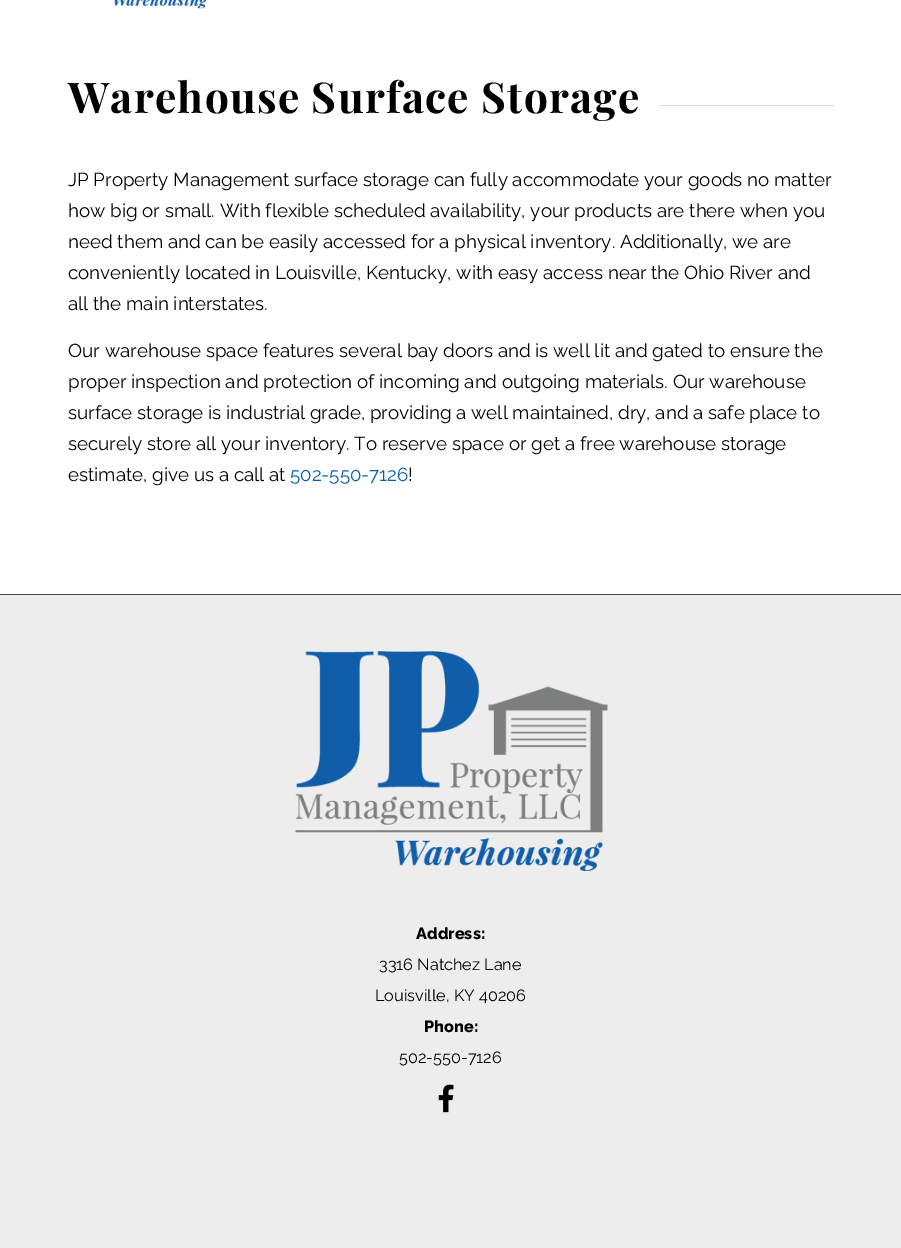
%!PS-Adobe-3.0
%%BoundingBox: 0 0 901 1248
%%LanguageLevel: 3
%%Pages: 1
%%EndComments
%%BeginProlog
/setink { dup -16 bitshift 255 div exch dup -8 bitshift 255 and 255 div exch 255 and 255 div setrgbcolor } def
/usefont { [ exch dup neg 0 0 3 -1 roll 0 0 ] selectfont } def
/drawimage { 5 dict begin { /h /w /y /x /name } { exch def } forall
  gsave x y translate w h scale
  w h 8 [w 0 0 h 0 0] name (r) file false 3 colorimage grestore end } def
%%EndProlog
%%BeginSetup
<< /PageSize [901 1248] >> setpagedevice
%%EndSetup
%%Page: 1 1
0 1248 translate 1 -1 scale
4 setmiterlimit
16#FFFFFF setink
0 0 901 1248 rectfill
(img1.raw) 114 0 93 9 drawimage
/PlayfairDisplay-Bold 42.5 usefont
16#000000 setink
68 113 moveto 1.25 0 (Warehouse Surface Storage) ashow
16#D9D9D9 setink
659 105 175 1 rectfill
/Raleway-Thin 18.75 usefont
16#000000 setink
[
    [(JP Property Management surface storage can fully accommodate your goods no matter) 68 186]
    [(how big or small. With flexible scheduled availability, your products are there when you) 68 217]
    [(need them and can be easily accessed for a physical inventory. Additionally, we are) 68 248]
    [(conveniently located in Louisville, Kentucky, with easy access near the Ohio River and) 68 279]
    [(all the main interstates.) 68 310]
    [(Our warehouse space features several bay doors and is well lit and gated to ensure the) 68 357]
    [(proper inspection and protection of incoming and outgoing materials. Our warehouse) 68 388]
    [(surface storage is industrial grade, providing a well maintained, dry, and a safe place to) 68 419]
    [(securely store all your inventory. To reserve space or get a free warehouse storage) 68 450]
    [(estimate, give us a call at) 68 481]
] { aload pop moveto show } forall
16#045EAD setink
290 481 moveto (502-550-7126) show
16#000000 setink
408 481 moveto (!) show
16#EDEDED setink
0 595 901 653 rectfill
16#444444 setink
0 594 901 1 rectfill
(img2.raw) 295 651 313 220 drawimage
/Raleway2-Thin 16.25 usefont
16#000000 setink
416 939 moveto (Address:) show
/Raleway-Thin 16.25 usefont
379 970 moveto (3316 Natchez Lane) show
375 1001 moveto (Louisville, KY 40206) show
/Raleway2-Thin 16.25 usefont
424 1032 moveto (Phone:) show
/Raleway-Thin 16.25 usefont
399 1063 moveto (502-550-7126) show
(img3.raw) 438 1084 16 29 drawimage
showpage
%%EOF
